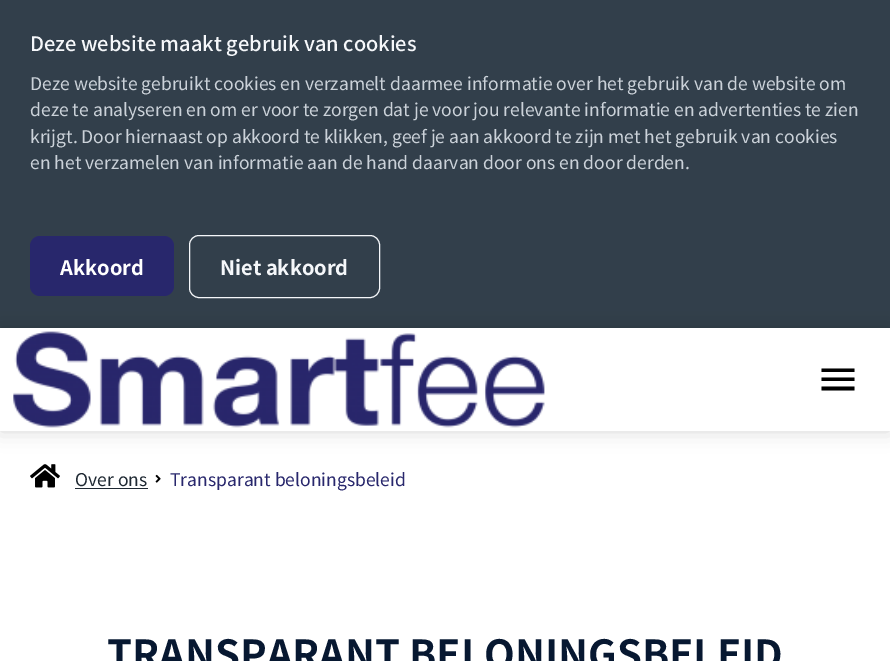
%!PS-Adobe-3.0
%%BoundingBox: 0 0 890 661
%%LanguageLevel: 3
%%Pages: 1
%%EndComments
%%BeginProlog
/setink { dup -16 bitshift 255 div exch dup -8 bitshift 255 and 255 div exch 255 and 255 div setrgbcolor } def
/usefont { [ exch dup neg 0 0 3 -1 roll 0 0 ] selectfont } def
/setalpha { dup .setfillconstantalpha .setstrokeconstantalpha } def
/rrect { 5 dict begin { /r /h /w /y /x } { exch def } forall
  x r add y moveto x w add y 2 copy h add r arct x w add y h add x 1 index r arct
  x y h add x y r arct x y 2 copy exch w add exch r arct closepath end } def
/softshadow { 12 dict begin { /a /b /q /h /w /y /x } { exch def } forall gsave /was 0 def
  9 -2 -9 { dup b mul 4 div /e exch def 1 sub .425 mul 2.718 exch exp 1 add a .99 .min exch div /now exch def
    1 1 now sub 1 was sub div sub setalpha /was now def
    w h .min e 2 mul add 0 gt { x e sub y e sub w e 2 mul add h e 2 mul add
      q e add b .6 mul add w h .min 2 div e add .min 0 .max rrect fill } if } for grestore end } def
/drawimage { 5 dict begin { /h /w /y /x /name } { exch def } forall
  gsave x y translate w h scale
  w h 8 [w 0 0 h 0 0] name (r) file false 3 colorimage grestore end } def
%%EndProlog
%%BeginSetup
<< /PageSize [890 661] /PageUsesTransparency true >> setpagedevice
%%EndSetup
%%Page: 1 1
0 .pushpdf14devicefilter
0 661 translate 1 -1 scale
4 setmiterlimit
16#FFFFFF setink
0 0 890 661 rectfill
16#323F4B setink
0 0 890 328 rectfill
/NotoSansJP-Medium 20 usefont
16#F5F7FA setink
30 51 moveto (Deze website maakt gebruik van cookies) show
/NotoSansJP-Regular 17.5 usefont
16#CBD2D9 setink
[
    [(Deze website gebruikt cookies en verzamelt daarmee informatie over het gebruik van de website om) 30 90]
    [(deze te analyseren en om er voor te zorgen dat je voor jou relevante informatie en advertenties te zien) 30 116]
    [(krijgt. Door hiernaast op akkoord te klikken, geef je aan akkoord te zijn met het gebruik van cookies) 30 143]
    [(en het verzamelen van informatie aan de hand daarvan door ons en door derden.) 30 169]
] { aload pop moveto show } forall
16#28276C setink
30 236 144 60 10 rrect fill
/NotoSansJP-Bold 20 usefont
16#FFFFFF setink
60 275 moveto (Akkoord) show
16#F5F7FA setink
189.5 235.5 190 62 9.5 rrect stroke
220 275 moveto (Niet akkoord) show
gsave
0 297 moveto 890 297 lineto 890 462 lineto 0 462 lineto closepath 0 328 moveto 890 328 lineto 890 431 lineto 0 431 lineto closepath eoclip newpath
16#000000 setink
0 328 890 103 0 10 0.16 softshadow
grestore
(img1.raw) 13 331 532 97 drawimage
16#000000 setink
821.5 390.5 moveto 854.5 390.5 lineto 854.5 386.5 lineto 821.5 386.5 lineto closepath 821.5 381 moveto 854.5 381 lineto 854.5 377.5 lineto 821.5 377.5 lineto closepath 821.5 368.5 moveto 821.5 372 lineto 854.5 372 lineto 854.5 368.5 lineto closepath fill
(img2.raw) 30 464 30 24 drawimage
/NotoSansJP-Regular 17.5 usefont
16#1F2933 setink
75 486 moveto (Over ons) show
75 488 73 1 rectfill
(img3.raw) 155 474 6 9 drawimage
16#28276C setink
170 486 moveto (Transparant beloningsbeleid) show
/NotoSansJP-Bold 40 usefont
16#071831 setink
107 669 moveto (TRANSPARANT BELONINGSBELEID) show
.poppdf14devicefilter showpage
%%EOF
